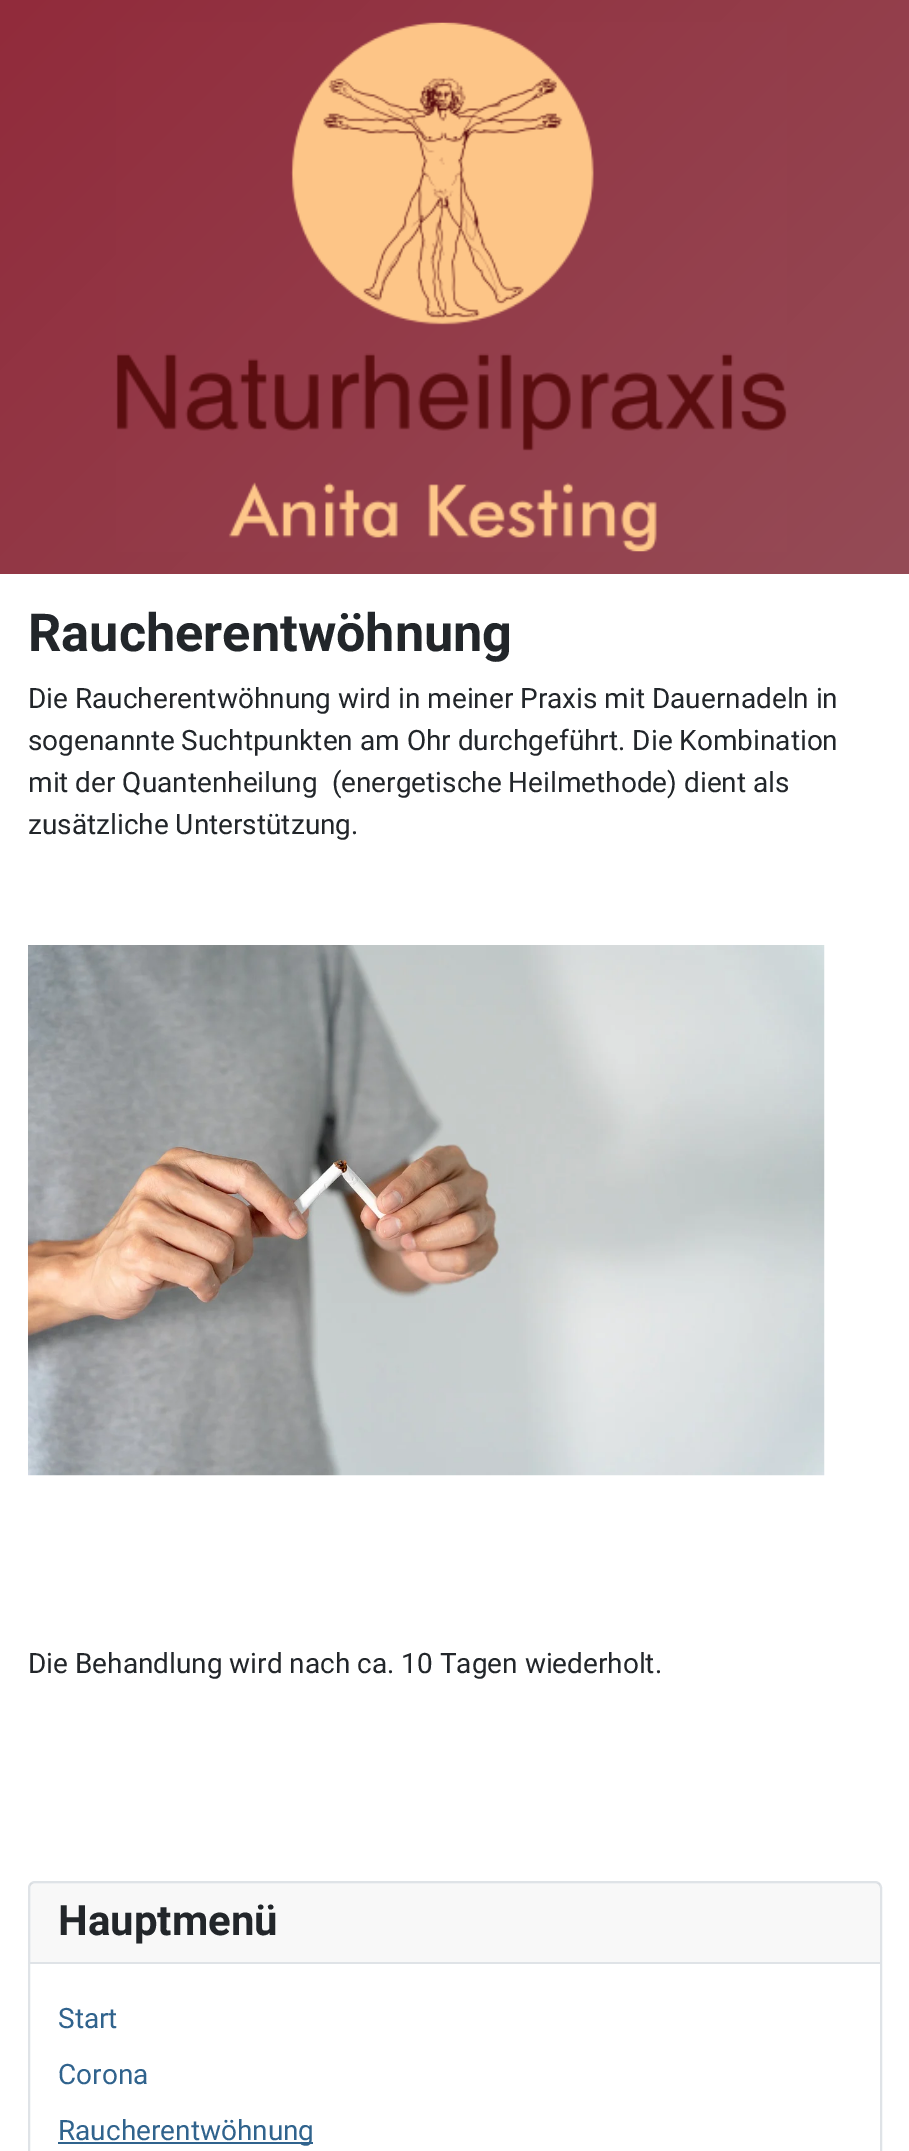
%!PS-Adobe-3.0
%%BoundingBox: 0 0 909 2151
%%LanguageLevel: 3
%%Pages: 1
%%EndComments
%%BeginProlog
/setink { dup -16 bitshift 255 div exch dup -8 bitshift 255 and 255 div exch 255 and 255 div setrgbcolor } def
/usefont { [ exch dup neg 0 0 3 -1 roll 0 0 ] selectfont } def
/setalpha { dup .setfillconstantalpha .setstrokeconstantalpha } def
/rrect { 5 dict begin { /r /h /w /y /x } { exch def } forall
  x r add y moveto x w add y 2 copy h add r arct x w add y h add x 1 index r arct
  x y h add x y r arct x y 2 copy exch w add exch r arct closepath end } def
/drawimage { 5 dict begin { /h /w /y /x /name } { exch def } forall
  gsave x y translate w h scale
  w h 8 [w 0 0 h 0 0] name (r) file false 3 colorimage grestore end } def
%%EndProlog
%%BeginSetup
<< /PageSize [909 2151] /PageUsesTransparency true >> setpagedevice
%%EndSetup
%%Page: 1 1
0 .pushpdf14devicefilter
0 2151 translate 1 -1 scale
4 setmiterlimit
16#FFFFFF setink
0 0 909 2151 rectfill
gsave 0 0 moveto 909 0 lineto 909 574 lineto 0 574 lineto closepath clip newpath
<< /ShadingType 2 /ColorSpace /DeviceRGB /Coords [84 -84 826 658] /Extend [true true] /Function << /FunctionType 2 /Domain [0 1] /C0 [0.569 0.169 0.231] /C1 [0.584 0.294 0.337] /N 1 >> >> shfill grestore
(img1.raw) 116 22 671 530 drawimage
/Roboto-Bold 52.25 usefont
16#22262A setink
28 651 moveto (Raucherentwöhnung) show
/Roboto-Regular 28 usefont
[
    [(Die Raucherentwöhnung wird in meiner Praxis mit Dauernadeln in) 28 708]
    [(sogenannte Suchtpunkten am Ohr durchgeführt. Die Kombination) 28 750]
    [(mit der Quantenheilung  \(energetische Heilmethode\) dient als) 28 792]
    [(zusätzliche Unterstützung.) 28 834]
] { aload pop moveto show } forall
(img2.raw) 28 945 797 531 drawimage
28 1673 moveto (Die Behandlung wird nach ca. 10 Tagen wiederholt.) show
16#DFE3E7 setink
2 setlinewidth
29 1882 852 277 6 rrect stroke
0.03 setalpha
16#22262A setink
30 1883 850 79 rectfill
1 setalpha
16#DFE3E7 setink
30 1962 850 2 rectfill
/Roboto-Bold 42 usefont
16#22262A setink
58 1935 moveto (Hauptmenü) show
/Roboto-Regular 28 usefont
16#30638D setink
58 2028 moveto (Start) show
58 2084 moveto (Corona) show
58 2142 255 2 rectfill
58 2140 moveto (Raucherentwöhnung) show
.poppdf14devicefilter showpage
%%EOF
